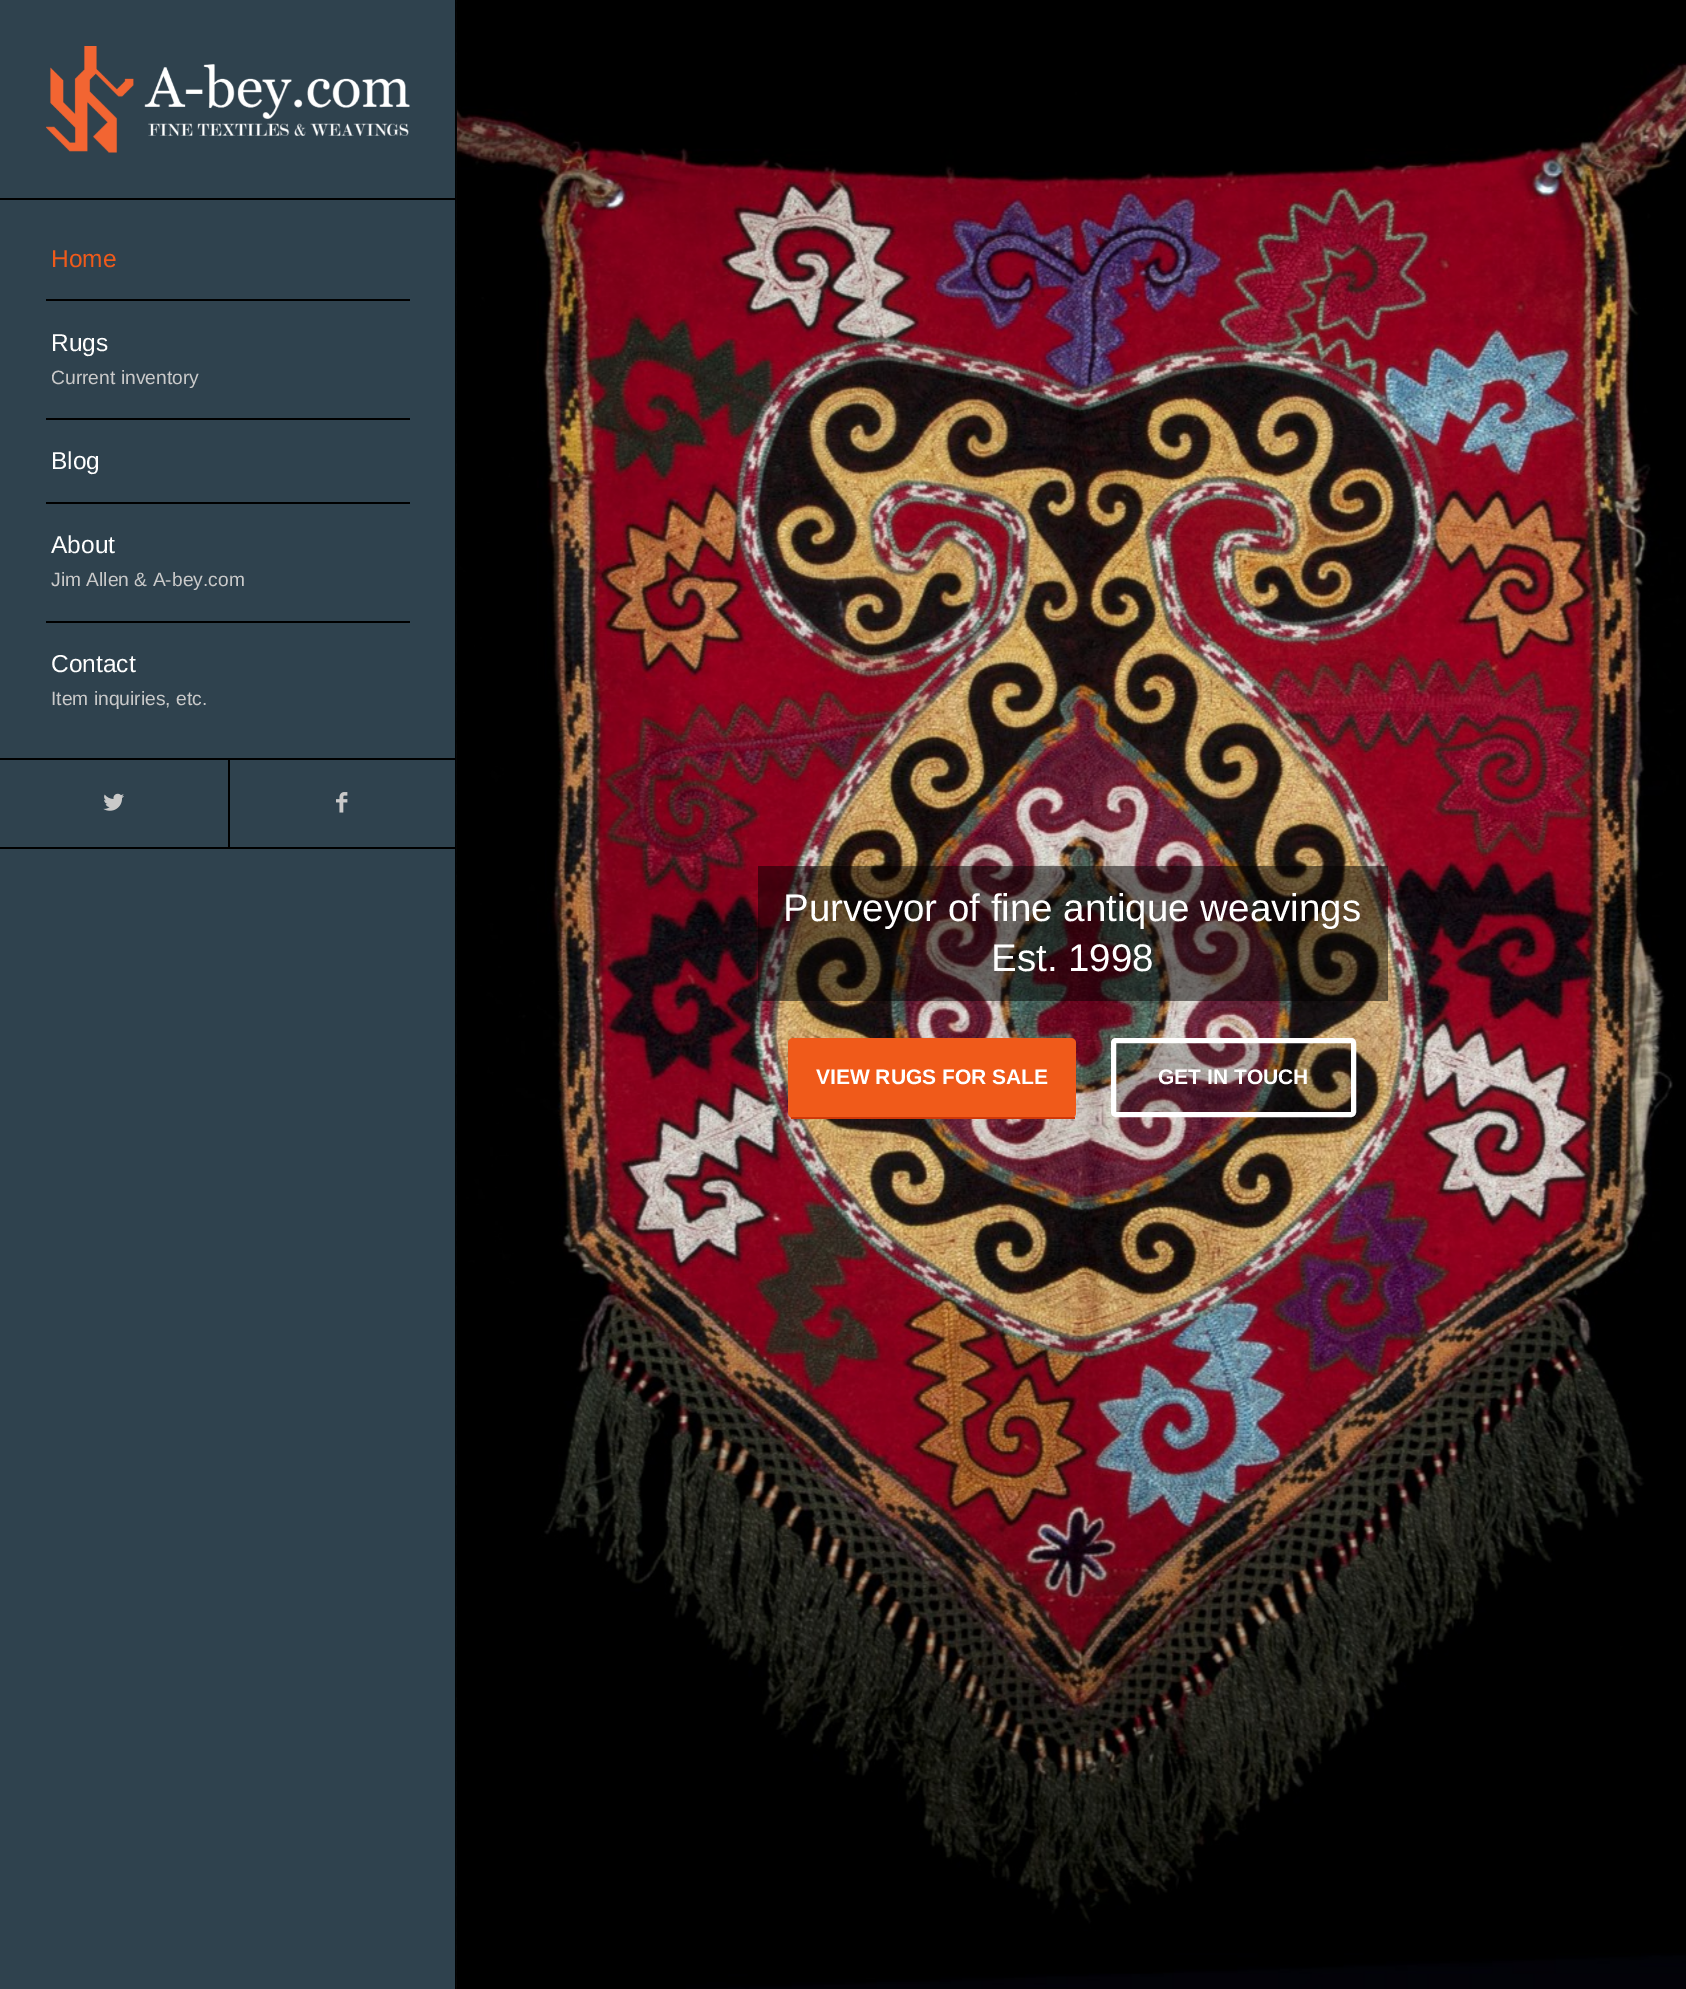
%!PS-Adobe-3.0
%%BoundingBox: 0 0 1686 1989
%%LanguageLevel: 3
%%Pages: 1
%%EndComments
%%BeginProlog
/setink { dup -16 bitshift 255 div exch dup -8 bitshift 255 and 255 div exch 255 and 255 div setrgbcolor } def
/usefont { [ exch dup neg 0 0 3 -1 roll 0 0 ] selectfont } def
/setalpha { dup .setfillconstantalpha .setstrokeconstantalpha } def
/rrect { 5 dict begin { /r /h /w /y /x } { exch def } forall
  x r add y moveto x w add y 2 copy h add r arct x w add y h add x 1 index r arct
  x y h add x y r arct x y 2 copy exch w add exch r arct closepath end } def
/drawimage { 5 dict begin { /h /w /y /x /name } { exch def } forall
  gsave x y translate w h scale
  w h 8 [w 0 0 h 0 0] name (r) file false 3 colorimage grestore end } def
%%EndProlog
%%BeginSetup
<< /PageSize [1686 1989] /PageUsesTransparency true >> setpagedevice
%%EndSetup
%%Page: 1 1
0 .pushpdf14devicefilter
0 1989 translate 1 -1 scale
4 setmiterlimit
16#2F424E setink
0 0 1686 1989 rectfill
16#000000 setink
0 847 455 2 rectfill
0 198 455 2 rectfill
(img1.raw) 46 46 364 107 drawimage
46 299 364 2 rectfill
/LiberationSans-Regular 24.5 usefont
16#F05A1A setink
51 267 moveto (Home) show
16#000000 setink
46 418 364 2 rectfill
16#FFFFFF setink
51 351 moveto (Rugs) show
/LiberationSans-Regular 19.25 usefont
16#C9C9C9 setink
51 384 moveto (Current inventory) show
16#000000 setink
46 502 364 2 rectfill
/LiberationSans-Regular 24.5 usefont
16#FFFFFF setink
51 469 moveto (Blog) show
16#000000 setink
46 621 364 2 rectfill
16#FFFFFF setink
51 553 moveto (About) show
/LiberationSans-Regular 19.25 usefont
16#C9C9C9 setink
51 586 moveto (Jim Allen & A-bey.com) show
/LiberationSans-Regular 24.5 usefont
16#FFFFFF setink
51 672 moveto (Contact) show
/LiberationSans-Regular 19.25 usefont
16#C9C9C9 setink
51 705 moveto (Item inquiries, etc.) show
16#000000 setink
0 758 455 2 rectfill
(img2.raw) 103 793 21 18 drawimage
228 760 2 87 rectfill
(img3.raw) 336 792 12 21 drawimage
455 0 2 1989 rectfill
(img4.raw) 456 0 1 1989 drawimage
(img5.raw) 457 0 1229 1989 drawimage
0.5 setalpha
758 866 630 135 rectfill
/LiberationSans-Regular 38.5 usefont
1 setalpha
16#FFFFFF setink
783 921 moveto (Purveyor of fine antique weavings) show
991 971 moveto (Est. 1998) show
16#F05A1A setink
788 1038 288 80 5 rrect fill
16#D03808 setink
791 1117 284 2 rectfill
/LiberationSans-Bold 21 usefont
16#FFFFFF setink
816 1084 moveto (VIEW RUGS FOR SALE) show
0.2 setalpha
16#000000 setink
1113.5 1040.5 240 74 2.5 rrect fill
1 setalpha
16#FFFFFF setink
5 setlinewidth
1113.5 1040.5 240 74 2.5 rrect stroke
1158 1084 moveto (GET IN TOUCH) show
.poppdf14devicefilter showpage
%%EOF
